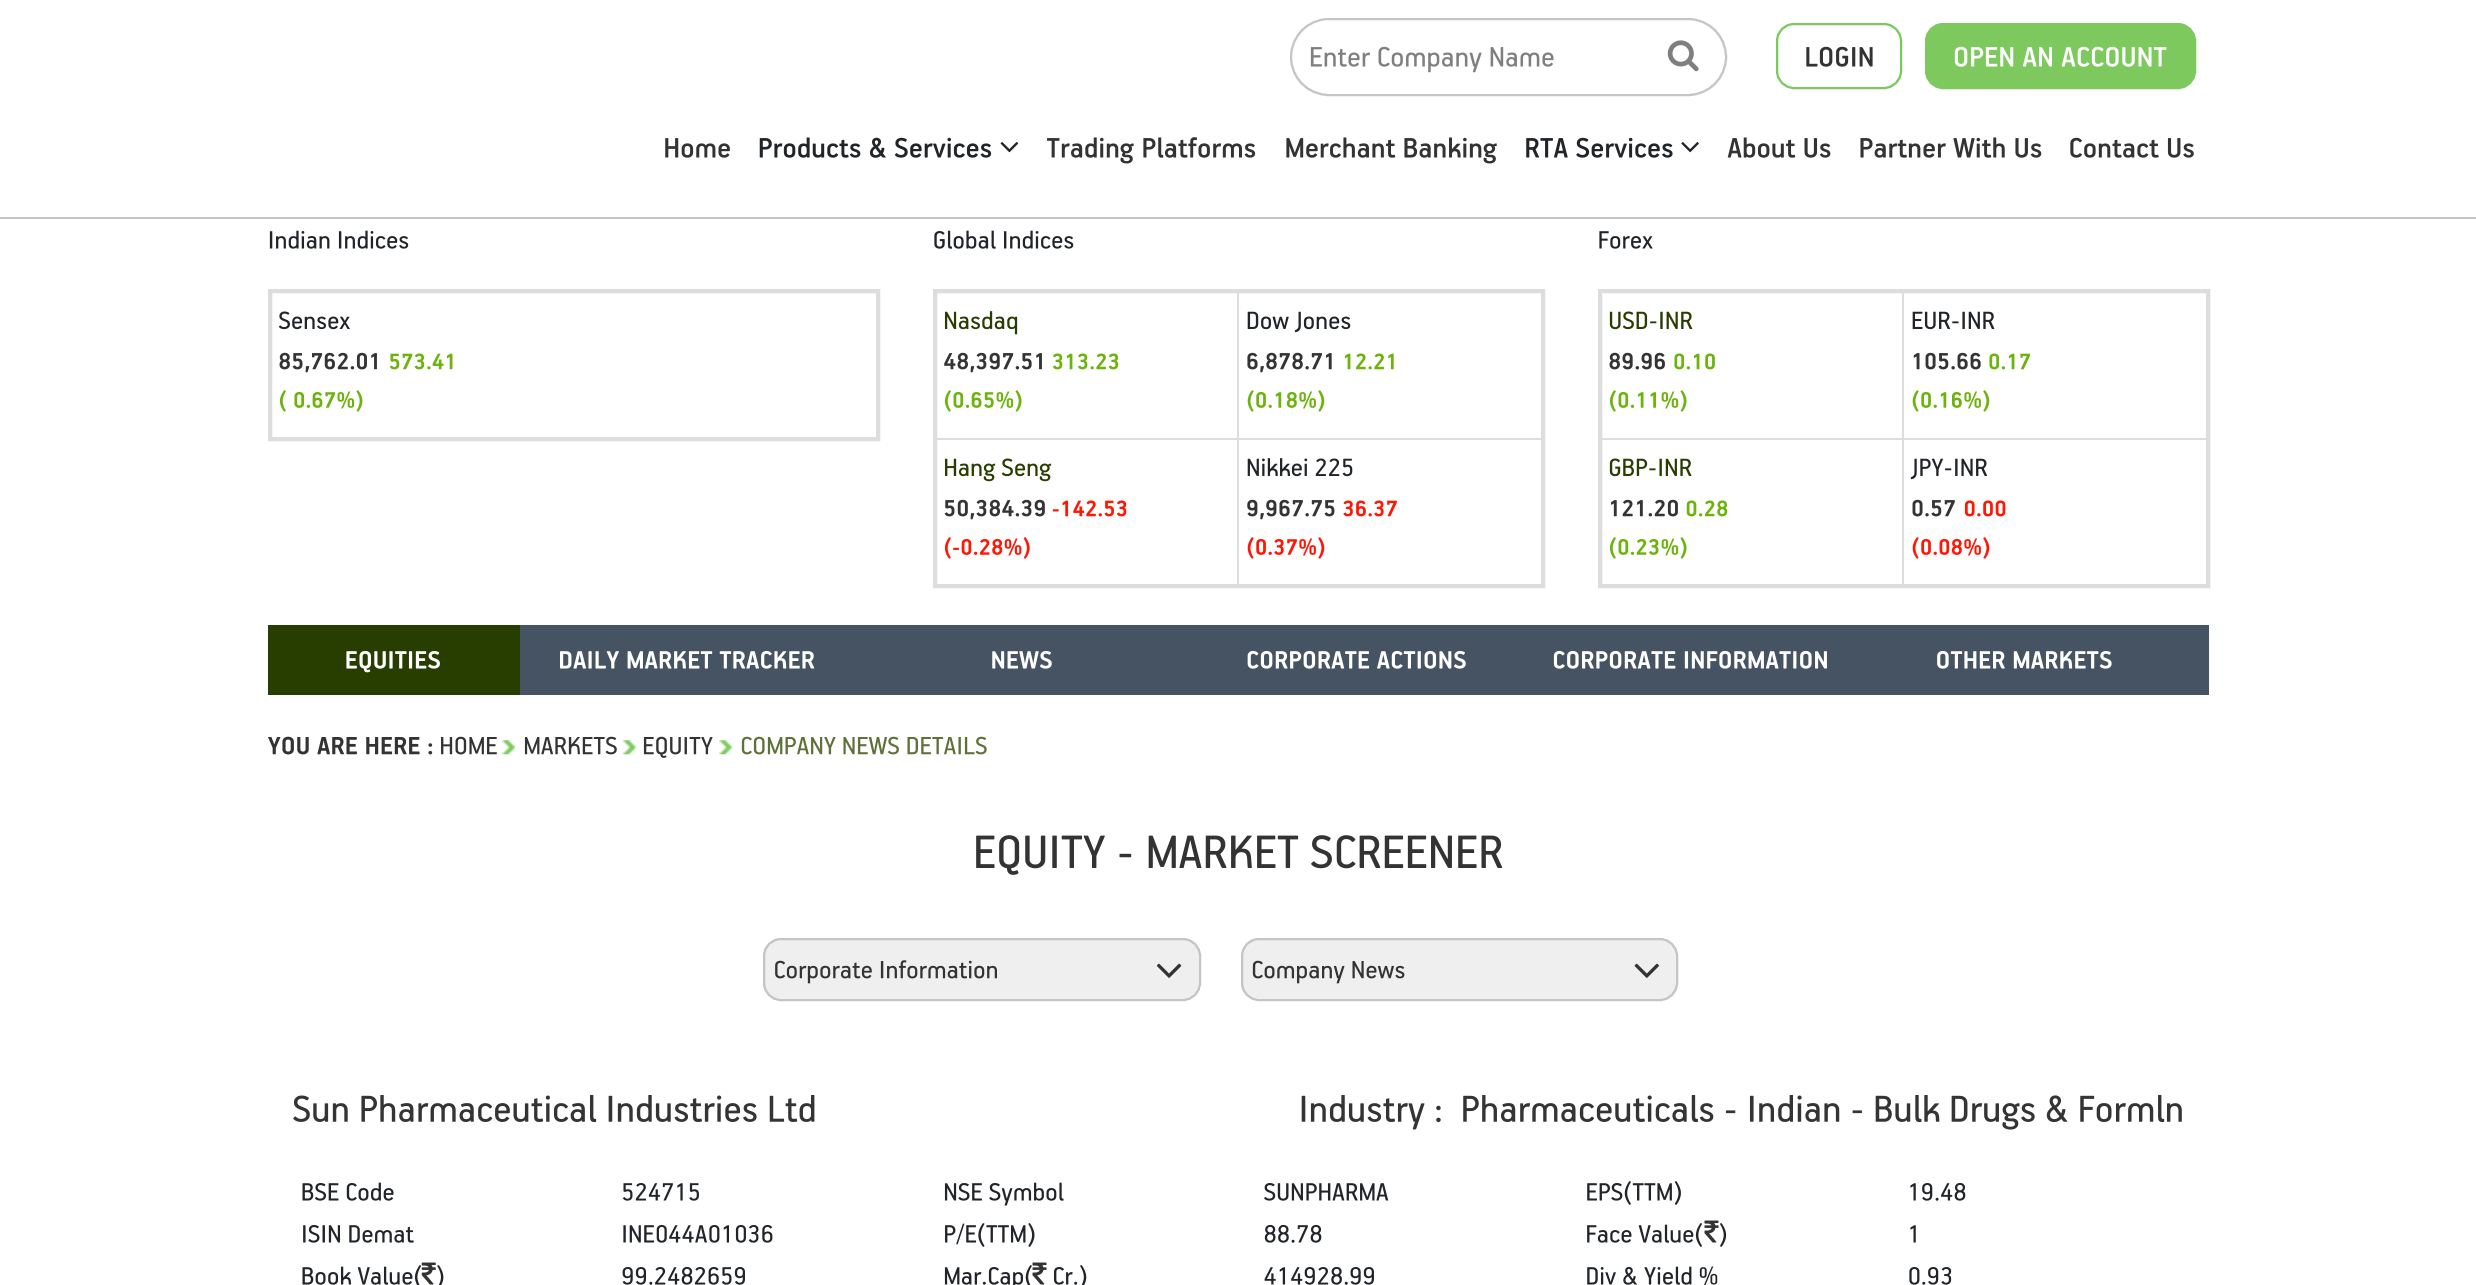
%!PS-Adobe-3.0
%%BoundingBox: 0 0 2476 1285
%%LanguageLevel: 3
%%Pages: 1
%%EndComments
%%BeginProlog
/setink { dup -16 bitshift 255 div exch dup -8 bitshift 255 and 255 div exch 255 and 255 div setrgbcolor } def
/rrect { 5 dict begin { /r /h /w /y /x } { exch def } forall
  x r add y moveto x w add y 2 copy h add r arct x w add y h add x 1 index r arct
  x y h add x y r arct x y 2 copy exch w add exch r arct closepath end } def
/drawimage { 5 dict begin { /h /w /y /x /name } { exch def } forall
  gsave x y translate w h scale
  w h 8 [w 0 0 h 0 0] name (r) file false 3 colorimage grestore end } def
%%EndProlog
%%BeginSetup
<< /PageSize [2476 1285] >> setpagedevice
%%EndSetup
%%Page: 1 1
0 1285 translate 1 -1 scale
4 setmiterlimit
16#FFFFFF setink
0 0 2476 1285 rectfill
16#C5C5C5 setink
0 217 2476 2 rectfill
2 setlinewidth
1291 19 435 76 38 rrect stroke
(img1.raw) 1310 46 244 27 drawimage
(img2.raw) 1667 40 32 32 drawimage
16#7DC95E setink
1777 24 124 64 17 rrect stroke
(img3.raw) 1806 46 67 21 drawimage
1926 24 269 64 17 rrect gsave fill grestore
stroke
(img4.raw) 1954 46 213 21 drawimage
(img5.raw) 665 138 65 20 drawimage
(img6.raw) 759 137 233 21 drawimage
(img7.raw) 1000 142 19 11 drawimage
(img8.raw) 1047 137 209 27 drawimage
(img9.raw) 1286 137 211 27 drawimage
(img10.raw) 1526 137 147 21 drawimage
(img11.raw) 1681 142 18 11 drawimage
(img12.raw) 1727 137 104 21 drawimage
(img13.raw) 1860 137 182 21 drawimage
(img14.raw) 2070 137 124 21 drawimage
(img15.raw) 269 230 140 19 drawimage
16#DDDDDD setink
4 setlinewidth
270 291 608 148 rectstroke
(img16.raw) 278 311 72 19 drawimage
(img17.raw) 279 352 98 21 drawimage
(img18.raw) 389 353 64 17 drawimage
(img19.raw) 279 390 84 22 drawimage
(img20.raw) 934 230 140 19 drawimage
935 291 608 295 rectstroke
1237 292 2 146 rectfill
(img21.raw) 944 311 74 24 drawimage
(img22.raw) 944 352 98 21 drawimage
(img23.raw) 1053 353 66 17 drawimage
(img24.raw) 944 390 78 22 drawimage
(img25.raw) 1247 311 104 22 drawimage
(img26.raw) 1247 352 85 21 drawimage
(img27.raw) 1344 353 50 17 drawimage
(img28.raw) 1247 390 78 22 drawimage
936 438 606 2 rectfill
1237 438 2 147 rectfill
(img29.raw) 945 458 107 24 drawimage
(img30.raw) 944 499 101 21 drawimage
(img31.raw) 1052 500 75 17 drawimage
(img32.raw) 944 537 86 22 drawimage
(img33.raw) 1247 458 106 19 drawimage
(img34.raw) 1247 499 88 21 drawimage
(img35.raw) 1343 500 54 17 drawimage
(img36.raw) 1247 537 78 22 drawimage
(img37.raw) 1599 231 54 18 drawimage
1600 291 608 295 rectstroke
1902 292 2 146 rectfill
(img38.raw) 1609 311 84 19 drawimage
(img39.raw) 1609 352 56 18 drawimage
(img40.raw) 1674 353 41 17 drawimage
(img41.raw) 1609 390 78 22 drawimage
(img42.raw) 1912 311 83 19 drawimage
(img43.raw) 1913 352 68 18 drawimage
(img44.raw) 1989 353 42 17 drawimage
(img45.raw) 1912 390 78 22 drawimage
1601 438 606 2 rectfill
1902 438 2 147 rectfill
(img46.raw) 1609 458 83 19 drawimage
(img47.raw) 1611 499 67 18 drawimage
(img48.raw) 1686 500 42 17 drawimage
(img49.raw) 1609 537 78 22 drawimage
(img50.raw) 1910 458 78 22 drawimage
(img51.raw) 1912 499 43 18 drawimage
(img52.raw) 1964 500 42 17 drawimage
(img53.raw) 1912 537 78 22 drawimage
16#283D00 setink
268 625 252 70 rectfill
(img54.raw) 346 650 94 23 drawimage
16#465362 setink
520 625 1689 70 rectfill
(img55.raw) 560 650 255 19 drawimage
(img56.raw) 992 651 60 18 drawimage
(img57.raw) 1247 650 219 19 drawimage
(img58.raw) 1553 650 274 19 drawimage
(img59.raw) 1937 650 175 19 drawimage
(img60.raw) 268 736 165 19 drawimage
(img61.raw) 441 736 56 19 drawimage
(img62.raw) 502 740 14 15 drawimage
(img63.raw) 524 736 93 19 drawimage
(img64.raw) 623 740 14 15 drawimage
(img65.raw) 643 736 70 22 drawimage
(img66.raw) 719 740 14 15 drawimage
(img67.raw) 741 736 95 19 drawimage
(img68.raw) 843 736 144 19 drawimage
(img69.raw) 976 835 527 40 drawimage
16#EFEFEF setink
764 939 436 61 17 rrect gsave fill grestore
16#C5C5C5 setink
2 setlinewidth
stroke
(img70.raw) 775 960 222 24 drawimage
(img71.raw) 1156 963 26 15 drawimage
16#EFEFEF setink
1242 939 435 61 17 rrect gsave fill grestore
16#C5C5C5 setink
stroke
(img72.raw) 1252 960 153 24 drawimage
(img73.raw) 1634 963 25 15 drawimage
(img74.raw) 293 1095 522 28 drawimage
(img75.raw) 1301 1095 881 35 drawimage
(img76.raw) 302 1182 92 19 drawimage
(img77.raw) 303 1225 111 18 drawimage
(img78.raw) 302 1265 120 20 drawimage
(img79.raw) 421 1262 15 23 drawimage
(img80.raw) 437 1265 7 20 drawimage
(img81.raw) 622 1183 77 18 drawimage
(img82.raw) 623 1225 150 18 drawimage
(img83.raw) 622 1266 123 19 drawimage
(img84.raw) 944 1182 120 24 drawimage
(img85.raw) 945 1223 90 24 drawimage
(img86.raw) 944 1265 88 20 drawimage
(img87.raw) 1032 1262 15 23 drawimage
(img88.raw) 1054 1265 33 20 drawimage
(img89.raw) 1264 1183 125 18 drawimage
(img90.raw) 1264 1224 58 19 drawimage
(img91.raw) 1264 1266 110 19 drawimage
(img92.raw) 1587 1181 94 24 drawimage
(img93.raw) 1587 1223 115 24 drawimage
(img87.raw) 1704 1220 15 23 drawimage
(img94.raw) 1720 1223 7 24 drawimage
(img95.raw) 1587 1266 131 19 drawimage
(img96.raw) 1910 1182 56 19 drawimage
(img97.raw) 1910 1225 6 18 drawimage
(img98.raw) 1909 1267 43 18 drawimage
showpage
%%EOF
